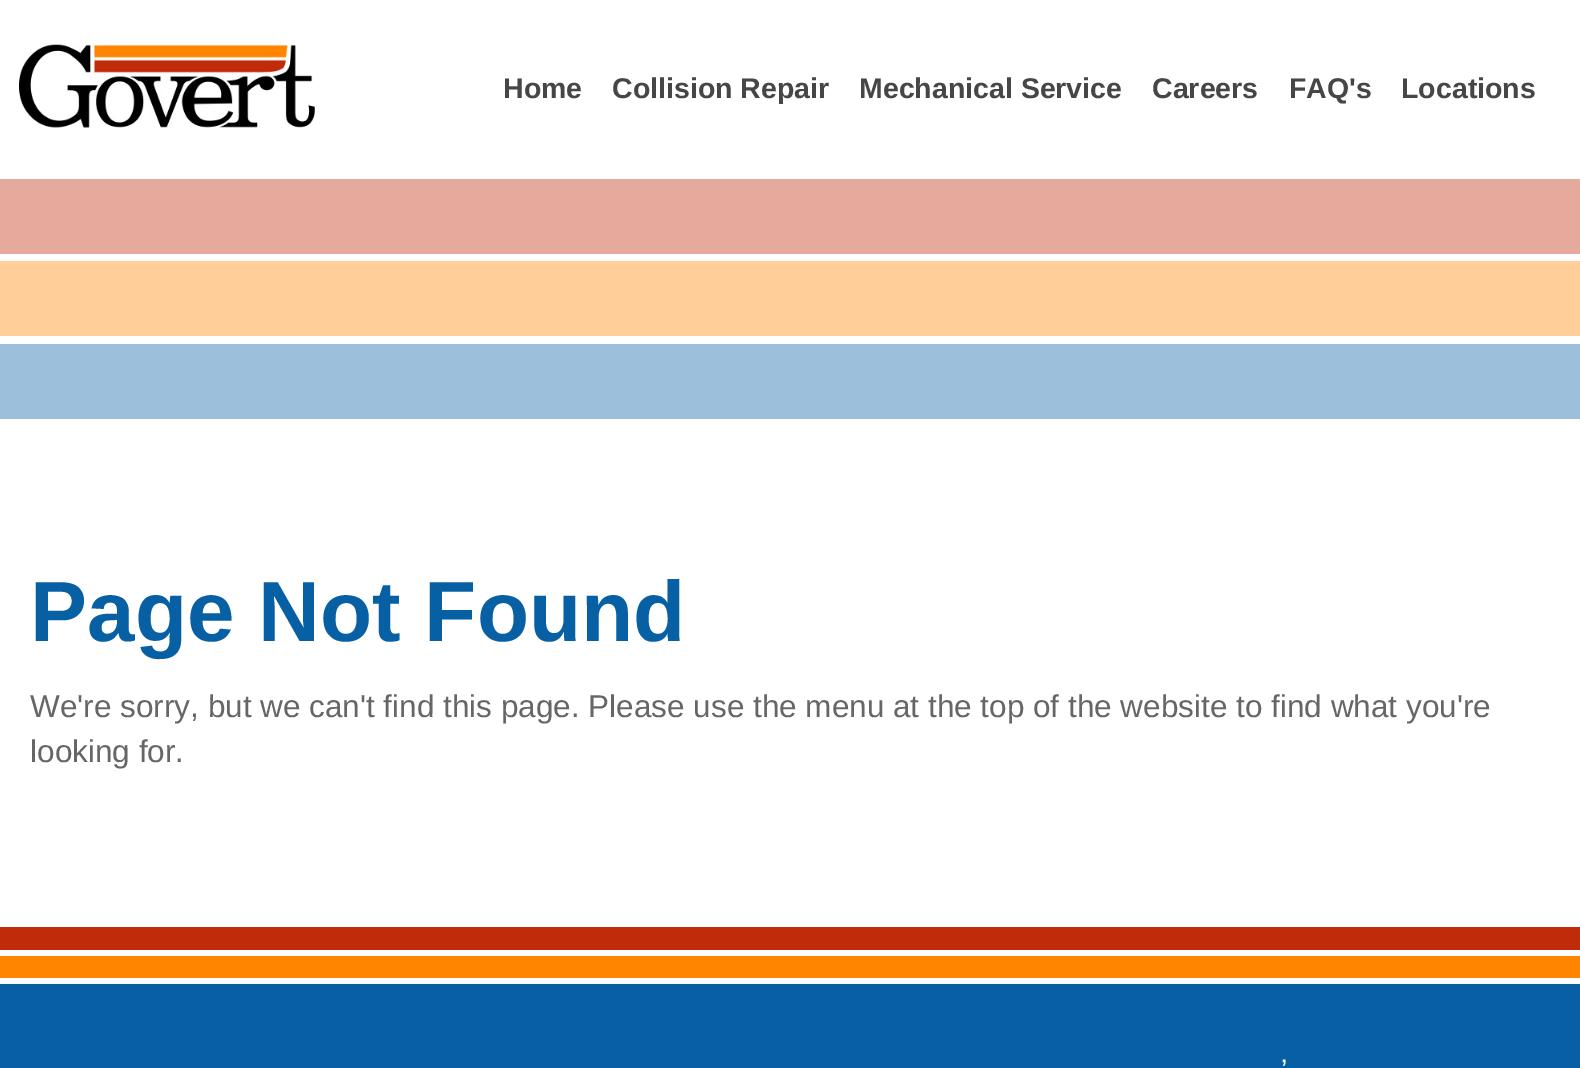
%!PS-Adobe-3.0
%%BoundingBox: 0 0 1580 1068
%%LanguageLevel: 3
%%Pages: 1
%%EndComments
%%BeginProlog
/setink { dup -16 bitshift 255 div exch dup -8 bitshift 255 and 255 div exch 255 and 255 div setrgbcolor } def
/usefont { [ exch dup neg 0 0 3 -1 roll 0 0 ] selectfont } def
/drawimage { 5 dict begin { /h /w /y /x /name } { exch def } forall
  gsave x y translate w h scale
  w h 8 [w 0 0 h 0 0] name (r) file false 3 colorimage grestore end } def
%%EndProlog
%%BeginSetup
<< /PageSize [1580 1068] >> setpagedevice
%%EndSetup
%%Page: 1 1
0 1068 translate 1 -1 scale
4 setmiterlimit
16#FFFFFF setink
0 0 1580 1068 rectfill
(img1.raw) 19 44 296 84 drawimage
/LiberationSans-Bold 28.5 usefont
16#464646 setink
[
    [(Home) 503 98]
    [(Collision Repair) 612 98]
    [(Mechanical Service) 859 98]
    [(Careers) 1152 98]
    [(FAQ's) 1289 98]
    [(Locations) 1401 98]
] { aload pop moveto show } forall
[
    [0 179 1580 75 16#E6AA9D]
    [0 261 1580 75 16#FFCE99]
    [0 344 1580 75 16#9CBFDB]
] { aload pop setink rectfill } forall
/LiberationSans-Bold 85.5 usefont
16#075FA4 setink
30 641 moveto (Page Not Found) show
/LiberationSans-Regular 31.5 usefont
16#666666 setink
30 717 moveto (We're sorry, but we can't find this page. Please use the menu at the top of the website to find what you're) show
30 762 moveto (looking for.) show
[
    [0 927 1580 23 16#C02B09]
    [0 956 1580 22 16#FF8500]
    [0 984 1580 84 16#075FA4]
] { aload pop setink rectfill } forall
/LiberationSans-Regular 28.5 usefont
16#FFFFFF setink
1281 1079 moveto (’) show
showpage
%%EOF
